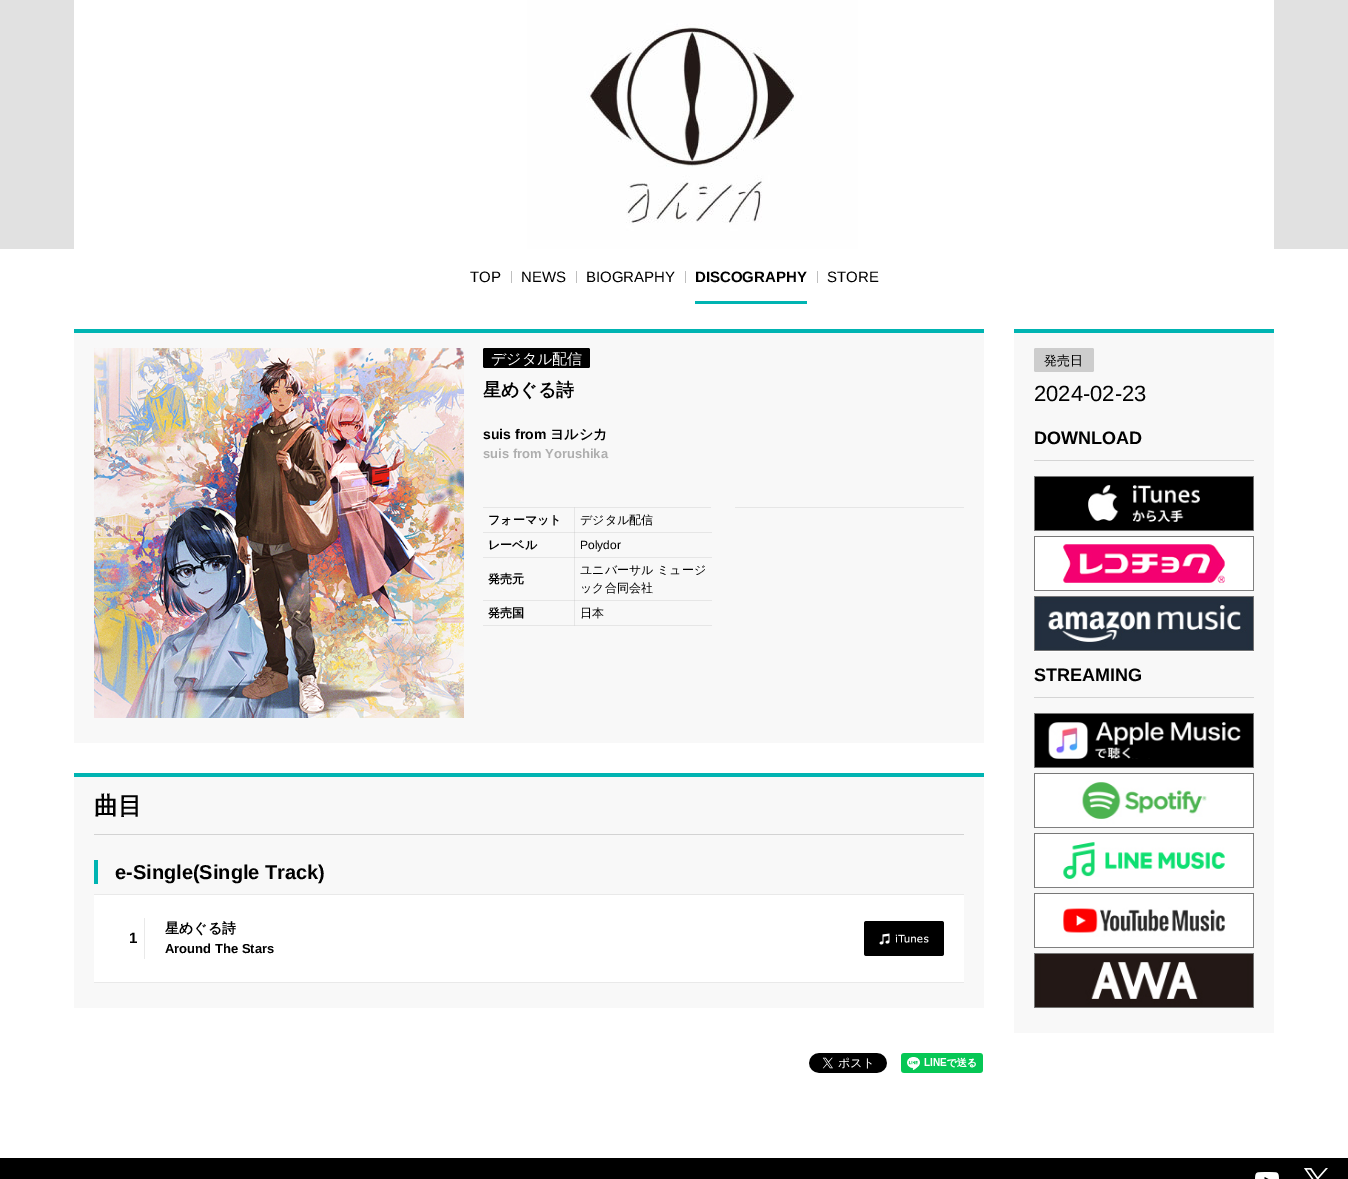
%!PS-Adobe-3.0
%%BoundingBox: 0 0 1348 1179
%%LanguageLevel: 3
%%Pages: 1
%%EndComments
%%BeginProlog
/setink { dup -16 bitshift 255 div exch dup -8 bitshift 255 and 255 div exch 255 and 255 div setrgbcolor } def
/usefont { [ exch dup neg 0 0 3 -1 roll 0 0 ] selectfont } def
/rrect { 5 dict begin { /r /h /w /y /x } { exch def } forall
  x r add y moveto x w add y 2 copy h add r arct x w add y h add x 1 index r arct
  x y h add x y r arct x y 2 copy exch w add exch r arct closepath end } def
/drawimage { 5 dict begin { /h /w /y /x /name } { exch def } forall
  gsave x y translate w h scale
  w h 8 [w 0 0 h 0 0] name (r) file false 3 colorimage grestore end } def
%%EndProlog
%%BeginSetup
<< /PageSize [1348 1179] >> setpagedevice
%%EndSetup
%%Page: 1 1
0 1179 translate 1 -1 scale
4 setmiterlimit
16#FFFFFF setink
0 0 1348 1179 rectfill
16#E1E1E1 setink
0 0 1348 249 rectfill
(img1.raw) 74 0 1200 249 drawimage
/LiberationSans-Regular 15 usefont
16#000000 setink
470 282 moveto (TOP) show
16#BFBFBF setink
511 271 1 12 rectfill
16#000000 setink
521 282 moveto (NEWS) show
16#BFBFBF setink
576 271 1 12 rectfill
16#000000 setink
586 282 moveto (BIOGRAPHY) show
16#BFBFBF setink
685 271 1 12 rectfill
/LiberationSans-Bold 15 usefont
16#000000 setink
695 282 moveto (DISCOGRAPHY) show
16#00B4B2 setink
695 301 112 3 rectfill
16#BFBFBF setink
817 271 1 12 rectfill
/LiberationSans-Regular 15 usefont
16#000000 setink
827 282 moveto (STORE) show
[
    [74 329 910 4 16#00B4B2]
    [74 333 910 410 16#F8F8F8]
    [574 507 1 119 16#E6E6E6]
] { aload pop setink rectfill } forall
(img2.raw) 94 348 370 370 drawimage
16#000000 setink
483 348 107 20 2 rrect fill
/WenQuanYiZenHei-Medium 15 usefont
16#FFFFFF setink
491 364 moveto (デジタル配信) show
/WenQuanYiZenHei-Bold 18 usefont
16#000000 setink
483 396 moveto (星めぐる詩) show
/LiberationSans-Bold 14 usefont
483 439 moveto (suis from) show
/WenQuanYiZenHei-Bold 14 usefont
550 439 moveto (ヨルシカ) show
/LiberationSans-Bold 13 usefont
16#AEAEAE setink
483 458 moveto (suis from Yorushika) show
[
    [735 507 229 1 16#E6E6E6]
    [483 507 228 1 16#E6E6E6]
    [574 507 1 1 16#DDDDDD]
    [483 532 229 1 16#E6E6E6]
    [574 532 1 1 16#D8D8D8]
] { aload pop setink rectfill } forall
/WenQuanYiZenHei-Bold 12 usefont
16#000000 setink
488 524 moveto (フォーマット) show
/WenQuanYiZenHei-Medium 12 usefont
580 524 moveto (デジタル配信) show
16#E6E6E6 setink
483 557 229 1 rectfill
16#D8D8D8 setink
574 557 1 1 rectfill
/WenQuanYiZenHei-Bold 12 usefont
16#000000 setink
488 549 moveto (レーベル) show
/LiberationSans-Regular 12 usefont
580 549 moveto (Polydor) show
16#E6E6E6 setink
483 600 229 1 rectfill
16#D8D8D8 setink
574 600 1 1 rectfill
/WenQuanYiZenHei-Bold 12 usefont
16#000000 setink
488 583 moveto (発売元) show
/WenQuanYiZenHei-Medium 12 usefont
580 574 moveto (ユニバーサル ミュージ) show
580 592 moveto (ック合同会社) show
16#E6E6E6 setink
483 625 229 1 rectfill
16#DDDDDD setink
574 625 1 1 rectfill
/WenQuanYiZenHei-Bold 12 usefont
16#000000 setink
488 617 moveto (発売国) show
/WenQuanYiZenHei-Medium 12 usefont
580 617 moveto (日本) show
[
    [74 773 910 4 16#00B4B2]
    [74 777 910 231 16#F8F8F8]
    [94 834 870 1 16#D3D3D3]
] { aload pop setink rectfill } forall
/WenQuanYiZenHei-Bold 24 usefont
16#000000 setink
94 814 moveto (曲目) show
16#00B4B2 setink
94 860 4 24 rectfill
/LiberationSans-Bold 20 usefont
16#000000 setink
115 879 moveto (e-Single\(Single Track\)) show
[
    [94 895 870 87 16#FFFFFF]
    [94 894 870 1 16#E9E9E9]
    [94 982 870 1 16#E9E9E9]
] { aload pop setink rectfill } forall
/LiberationSans-Bold 15 usefont
16#000000 setink
129 943 moveto (1) show
16#E9E9E9 setink
144 918 1 41 rectfill
/WenQuanYiZenHei-Bold 14 usefont
16#000000 setink
165 933 moveto (星めぐる詩) show
/LiberationSans-Bold 13 usefont
165 953 moveto (Around The Stars) show
(img3.raw) 864 921 80 35 drawimage
(img4.raw) 809 1053 78 20 drawimage
(img5.raw) 901 1053 82 20 drawimage
16#00B4B2 setink
1014 329 260 4 rectfill
16#F8F8F8 setink
1014 333 260 700 rectfill
16#CDCDCD setink
1034 348 60 24 2 rrect fill
/WenQuanYiZenHei-Medium 13 usefont
16#000000 setink
1044 365 moveto (発売日) show
/LiberationSans-Regular 22 usefont
1034 401 moveto (2024-02-23) show
16#D5D5D5 setink
1034 460 220 1 rectfill
/LiberationSans-Bold 18 usefont
16#000000 setink
1034 444 moveto (DOWNLOAD) show
(img6.raw) 1034 476 220 55 drawimage
(img7.raw) 1034 536 220 55 drawimage
(img8.raw) 1034 596 220 55 drawimage
16#FFFFFF setink
1034 651 220 1 rectfill
16#D5D5D5 setink
1034 697 220 1 rectfill
16#000000 setink
1034 681 moveto (STREAMING) show
(img9.raw) 1034 713 220 55 drawimage
(img10.raw) 1034 773 220 55 drawimage
(img11.raw) 1034 833 220 55 drawimage
(img12.raw) 1034 893 220 55 drawimage
(img13.raw) 1034 953 220 55 drawimage
0 1158 1348 21 rectfill
(img14.raw) 1255 1172 24 7 drawimage
(img15.raw) 1304 1168 24 11 drawimage
showpage
%%EOF
